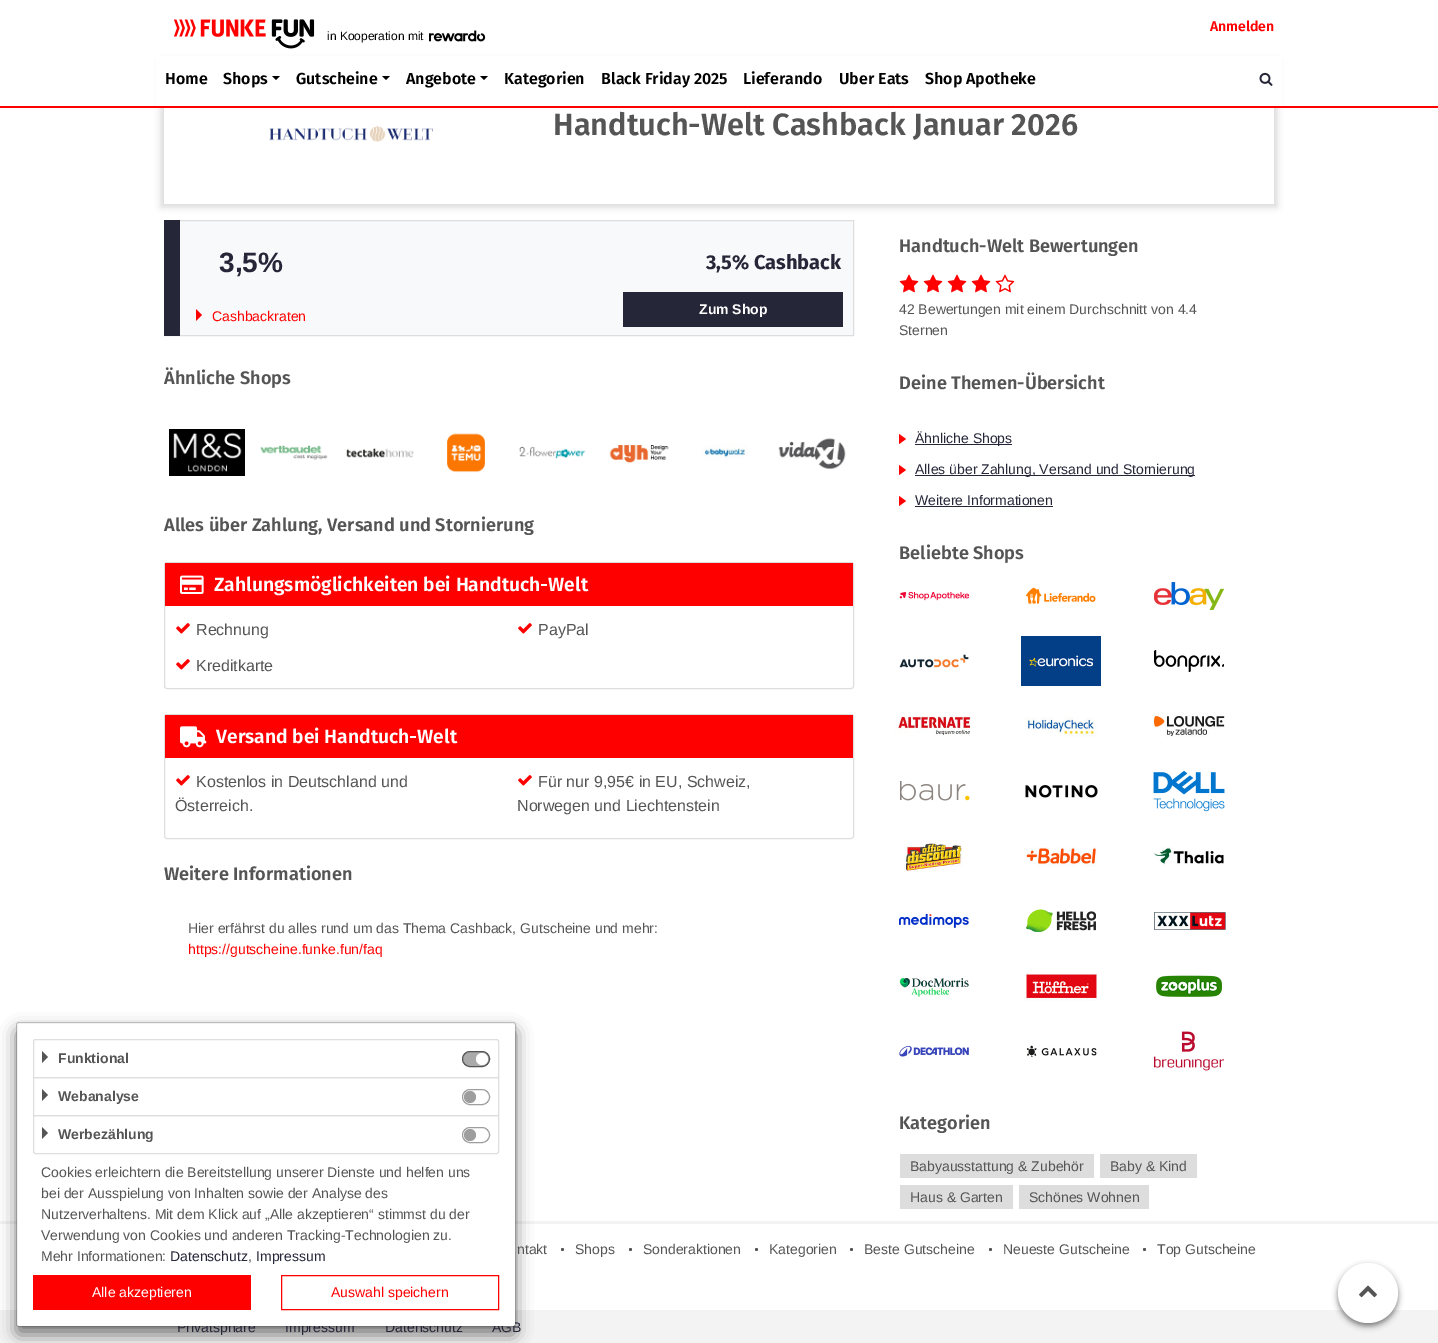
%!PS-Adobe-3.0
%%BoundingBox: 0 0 1438 1343
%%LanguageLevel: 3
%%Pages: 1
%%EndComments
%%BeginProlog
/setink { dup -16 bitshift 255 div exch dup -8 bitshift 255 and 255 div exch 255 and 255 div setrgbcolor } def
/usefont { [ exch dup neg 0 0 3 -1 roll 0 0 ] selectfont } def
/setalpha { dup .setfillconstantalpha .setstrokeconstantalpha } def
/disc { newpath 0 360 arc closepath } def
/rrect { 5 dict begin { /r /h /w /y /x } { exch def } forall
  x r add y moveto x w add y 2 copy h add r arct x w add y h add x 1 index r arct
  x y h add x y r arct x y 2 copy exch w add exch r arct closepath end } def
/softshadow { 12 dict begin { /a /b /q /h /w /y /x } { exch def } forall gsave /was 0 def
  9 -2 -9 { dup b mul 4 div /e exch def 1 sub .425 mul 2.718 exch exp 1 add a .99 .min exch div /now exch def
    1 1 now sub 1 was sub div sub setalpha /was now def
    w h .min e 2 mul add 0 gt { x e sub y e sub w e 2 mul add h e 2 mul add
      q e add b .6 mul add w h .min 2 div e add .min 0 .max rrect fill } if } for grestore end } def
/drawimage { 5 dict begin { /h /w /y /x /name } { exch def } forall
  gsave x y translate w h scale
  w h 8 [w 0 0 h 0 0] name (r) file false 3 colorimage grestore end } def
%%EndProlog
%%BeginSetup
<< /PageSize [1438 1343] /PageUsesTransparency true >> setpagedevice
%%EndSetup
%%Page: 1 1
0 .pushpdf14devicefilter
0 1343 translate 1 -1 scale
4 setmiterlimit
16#FFFFFF setink
0 0 1438 1343 rectfill
gsave
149 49 moveto 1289 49 lineto 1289 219 lineto 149 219 lineto closepath 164 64 moveto 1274 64 lineto 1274 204 lineto 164 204 lineto closepath eoclip newpath
16#000000 setink
161 61 1116 146 0 3.5 0.15 softshadow
grestore
156 56 1126 50 rectfill
16#FF0000 setink
0 106 1438 2 rectfill
/FiraSans-SemiBold 14 usefont
1210 31 moveto (Anmelden) show
(img1.raw) 173 19 142 30 drawimage
/LiberationSans-Regular 12 usefont
16#000000 setink
327 40 moveto (in Kooperation mit) show
(img2.raw) 429 30 57 12 drawimage
/FiraSans-SemiBold 16 usefont
165 84 moveto (Home) show
223 84 moveto (Shops) show
272 76 moveto 280 76 lineto 276 80 lineto closepath fill
296 84 moveto (Gutscheine) show
382 76 moveto 390 76 lineto 386 80 lineto closepath fill
406 84 moveto (Angebote) show
480 76 moveto 488 76 lineto 484 80 lineto closepath fill
[
    [(Kategorien) 504 84]
    [(Black Friday 2025) 601 84]
    [(Lieferando) 743 84]
    [(Uber Eats) 839 84]
    [(Shop Apotheke) 925 84]
] { aload pop moveto show } forall
(img3.raw) 1259 72 14 14 drawimage
(img4.raw) 269 126 164 16 drawimage
/FiraSans-SemiBold 30.75 usefont
16#555555 setink
553 135 moveto (Handtuch-Welt Cashback Januar 2026) show
16#F8F9FA setink
180 221 673 114 rectfill
16#DEDEDE setink
164.5 220.5 689 115 rectstroke
16#262639 setink
164 220 16 116 rectfill
/LiberationSans-Bold 28 usefont
219 272 moveto (3,5%) show
/FiraSans-Bold 20 usefont
706 269 moveto (3,5% Cashback) show
16#FF0000 setink
196 321 moveto 196 309 lineto 202 315 lineto closepath fill
/LiberationSans-Regular 14 usefont
212 321 moveto (Cashbackraten) show
16#262639 setink
623 292 220 35 rectfill
/LiberationSans-Bold 14 usefont
16#FFFFFF setink
699 314 moveto (Zum Shop) show
/FiraSans-SemiBold 18.2 usefont
16#555555 setink
164 384 moveto (Ähnliche Shops) show
(img5.raw) 169 429 76 47 drawimage
(img6.raw) 260 445 68 15 drawimage
(img7.raw) 346 448 68 10 drawimage
(img8.raw) 447 433 38 40 drawimage
(img9.raw) 519 446 67 13 drawimage
(img10.raw) 609 445 60 18 drawimage
(img11.raw) 702 444 46 15 drawimage
(img12.raw) 778 438 68 32 drawimage
164 531 moveto (Alles über Zahlung, Versand und Stornierung) show
16#DEDEDE setink
164.5 562.5 689 126 2.5 rrect stroke
16#FF0000 setink
165 563 688 43 rectfill
(img13.raw) 180 575 24 19 drawimage
/FiraSans-SemiBold 19.25 usefont
16#FFFFFF setink
214 591 moveto (Zahlungsmöglichkeiten bei Handtuch-Welt) show
(img14.raw) 176 623 14 11 drawimage
/LiberationSans-Regular 16 usefont
16#555555 setink
196 635 moveto (Rechnung) show
(img14.raw) 518 623 14 11 drawimage
538 635 moveto (PayPal) show
(img14.raw) 176 659 14 11 drawimage
196 671 moveto (Kreditkarte) show
16#DEDEDE setink
164.5 714.5 689 124 2.5 rrect stroke
16#FF0000 setink
165 715 688 43 rectfill
(img15.raw) 180 726 27 22 drawimage
/FiraSans-SemiBold 19.25 usefont
16#FFFFFF setink
216 743 moveto (Versand bei Handtuch-Welt) show
(img14.raw) 176 775 14 11 drawimage
/LiberationSans-Regular 16 usefont
16#555555 setink
196 787 moveto (Kostenlos in Deutschland und) show
175 811 moveto (Österreich.) show
(img14.raw) 518 775 14 11 drawimage
538 787 moveto (Für nur 9,95€ in EU, Schweiz,) show
517 811 moveto (Norwegen und Liechtenstein) show
/FiraSans-SemiBold 18.2 usefont
164 880 moveto (Weitere Informationen) show
/LiberationSans-Regular 14 usefont
188 933 moveto (Hier erfährst du alles rund um das Thema Cashback, Gutscheine und mehr:) show
16#FF0000 setink
188 954 moveto (https://gutscheine.funke.fun/faq) show
/FiraSans-SemiBold 18.2 usefont
16#555555 setink
899 252 moveto (Handtuch-Welt Bewertungen) show
(img16.raw) 899 274 20 19 drawimage
(img16.raw) 923 274 20 19 drawimage
(img16.raw) 947 274 20 19 drawimage
(img16.raw) 971 274 20 19 drawimage
(img17.raw) 995 274 20 19 drawimage
/LiberationSans-Regular 14 usefont
899 314 moveto (42 Bewertungen mit einem Durchschnitt von 4.4) show
899 335 moveto (Sternen) show
/FiraSans-SemiBold 18.2 usefont
899 389 moveto (Deine Themen-Übersicht) show
16#FF0000 setink
899 444 moveto 899 434 lineto 906 439 lineto closepath 899 475 moveto 899 465 lineto 906 470 lineto closepath fill
16#262639 setink
915 444 97 1 rectfill
/LiberationSans-Regular 14 usefont
915 443 moveto (Ähnliche Shops) show
915 475 280 1 rectfill
915 474 moveto (Alles über Zahlung, Versand und Stornierung) show
16#FF0000 setink
899 506 moveto 899 496 lineto 906 501 lineto closepath fill
16#262639 setink
915 505 moveto (Weitere Informationen) show
915 506 138 1 rectfill
/FiraSans-SemiBold 18.2 usefont
16#555555 setink
899 559 moveto (Beliebte Shops) show
(img18.raw) 899 591 71 10 drawimage
(img19.raw) 1026 587 70 17 drawimage
(img20.raw) 1154 582 70 28 drawimage
(img21.raw) 899 654 70 14 drawimage
(img22.raw) 1021 636 80 50 drawimage
(img23.raw) 1154 650 70 22 drawimage
(img24.raw) 894 716 80 19 drawimage
(img25.raw) 1025 717 72 20 drawimage
(img26.raw) 1153 713 72 24 drawimage
(img27.raw) 900 781 70 20 drawimage
(img28.raw) 1025 785 73 13 drawimage
(img29.raw) 1153 770 72 42 drawimage
(img30.raw) 905 842 58 30 drawimage
(img31.raw) 1025 847 72 20 drawimage
(img32.raw) 1153 847 71 19 drawimage
(img33.raw) 899 913 70 15 drawimage
(img34.raw) 1026 909 70 23 drawimage
(img35.raw) 1154 912 72 18 drawimage
(img36.raw) 899 978 70 19 drawimage
(img37.raw) 1025 973 72 28 drawimage
(img38.raw) 1156 975 66 22 drawimage
(img39.raw) 899 1046 70 11 drawimage
(img40.raw) 1026 1045 71 12 drawimage
(img41.raw) 1154 1031 70 40 drawimage
899 1129 moveto (Kategorien) show
16#DDDDDD setink
900 1154 194 24 rectfill
/LiberationSans-Regular 14 usefont
16#555555 setink
910 1171 moveto (Babyausstattung & Zubehör) show
16#DDDDDD setink
1100 1154 97 24 rectfill
16#555555 setink
1110 1171 moveto (Baby & Kind) show
16#DDDDDD setink
900 1185 113 24 rectfill
16#555555 setink
910 1202 moveto (Haus & Garten) show
16#DDDDDD setink
1019 1185 130 24 rectfill
16#555555 setink
1029 1202 moveto (Schönes Wohnen) show
16#F3F3F3 setink
0 1221 1438 3 rectfill
0 1310 1438 33 rectfill
16#000000 setink
16 1030 500 305 3 8 0.5 softshadow
16#262639 setink
[
    [(Privatsphäre) 177 1332]
    [(Impressum) 285 1332]
    [(Datenschutz) 385 1332]
    [(AGB) 492 1332]
] { aload pop moveto show } forall
16#FFFFFF setink
17 1023 498 303 2 rrect fill
0.2 setalpha
16#000000 setink
16.5 1022.5 499 304 2.5 rrect stroke
1 setalpha
16#DEDEDE setink
35.5 1039.5 moveto 496.5 1039.5 lineto 497.5 1039.5 498.5 1040.5 498.5 1041.5 curveto 498.5 1077.5 lineto 33.5 1077.5 lineto 33.5 1041.5 lineto 33.5 1040.5 34.5 1039.5 35.5 1039.5 curveto closepath stroke
16#555555 setink
42 1063 moveto 42 1051 lineto 48 1057 lineto closepath fill
/LiberationSans-Bold 14 usefont
58 1063 moveto (Funktional) show
16#AAAAAA setink
462.5 1051.5 27 15 7.5 rrect gsave fill grestore
16#555555 setink
stroke
16#FFFFFF setink
482 1059 6 disc fill
16#DEDEDE setink
33.5 1077.5 465 38 rectstroke
16#555555 setink
42 1101 moveto 42 1089 lineto 48 1095 lineto closepath fill
58 1101 moveto (Webanalyse) show
16#9E9E9E setink
462.5 1089.5 27 15 7.5 rrect stroke
470 1097 6 disc fill
16#DEDEDE setink
33.5 1115.5 moveto 498.5 1115.5 lineto 498.5 1151.5 lineto 498.5 1152.5 497.5 1153.5 496.5 1153.5 curveto 35.5 1153.5 lineto 34.5 1153.5 33.5 1152.5 33.5 1151.5 curveto closepath stroke
16#555555 setink
42 1139 moveto 42 1127 lineto 48 1133 lineto closepath fill
58 1139 moveto (Werbezählung) show
16#9E9E9E setink
462.5 1127.5 27 15 7.5 rrect stroke
470 1135 6 disc fill
/LiberationSans-Regular 14 usefont
16#555555 setink
[
    [(Cookies erleichtern die Bereitstellung unserer Dienste und helfen uns) 41 1177]
    [(bei der Ausspielung von Inhalten sowie der Analyse des) 41 1198]
    [(Nutzerverhaltens. Mit dem Klick auf „Alle akzeptieren“ stimmst du der) 41 1219]
    [(Verwendung von Cookies und anderen Tracking-Technologien zu.) 41 1240]
    [(Mehr Informationen:) 41 1261]
] { aload pop moveto show } forall
16#262639 setink
170 1261 moveto (Datenschutz) show
16#555555 setink
248 1261 moveto (,) show
16#262639 setink
256 1261 moveto (Impressum) show
16#FF0000 setink
33 1275 218 35 rectfill
16#FFFFFF setink
92 1297 moveto (Alle akzeptieren) show
16#FF0000 setink
281.5 1275.5 217 34 rectstroke
331 1297 moveto (Auswahl speichern) show
16#555555 setink
517 1254 moveto (ntakt) show
562.5 1249.5 1.5 disc fill
575 1254 moveto (Shops) show
630.5 1249.5 1.5 disc fill
643 1254 moveto (Sonderaktionen) show
756.5 1249.5 1.5 disc fill
769 1254 moveto (Kategorien) show
851.5 1249.5 1.5 disc fill
864 1254 moveto (Beste Gutscheine) show
990.5 1249.5 1.5 disc fill
1003 1254 moveto (Neueste Gutscheine) show
1144.5 1249.5 1.5 disc fill
1157 1254 moveto (Top Gutscheine) show
16#000000 setink
1338 1266 60 60 30 3 0.5 softshadow
16#FFFFFF setink
1368 1293 30 disc fill
(img42.raw) 1359 1285 18 13 drawimage
.poppdf14devicefilter showpage
%%EOF
